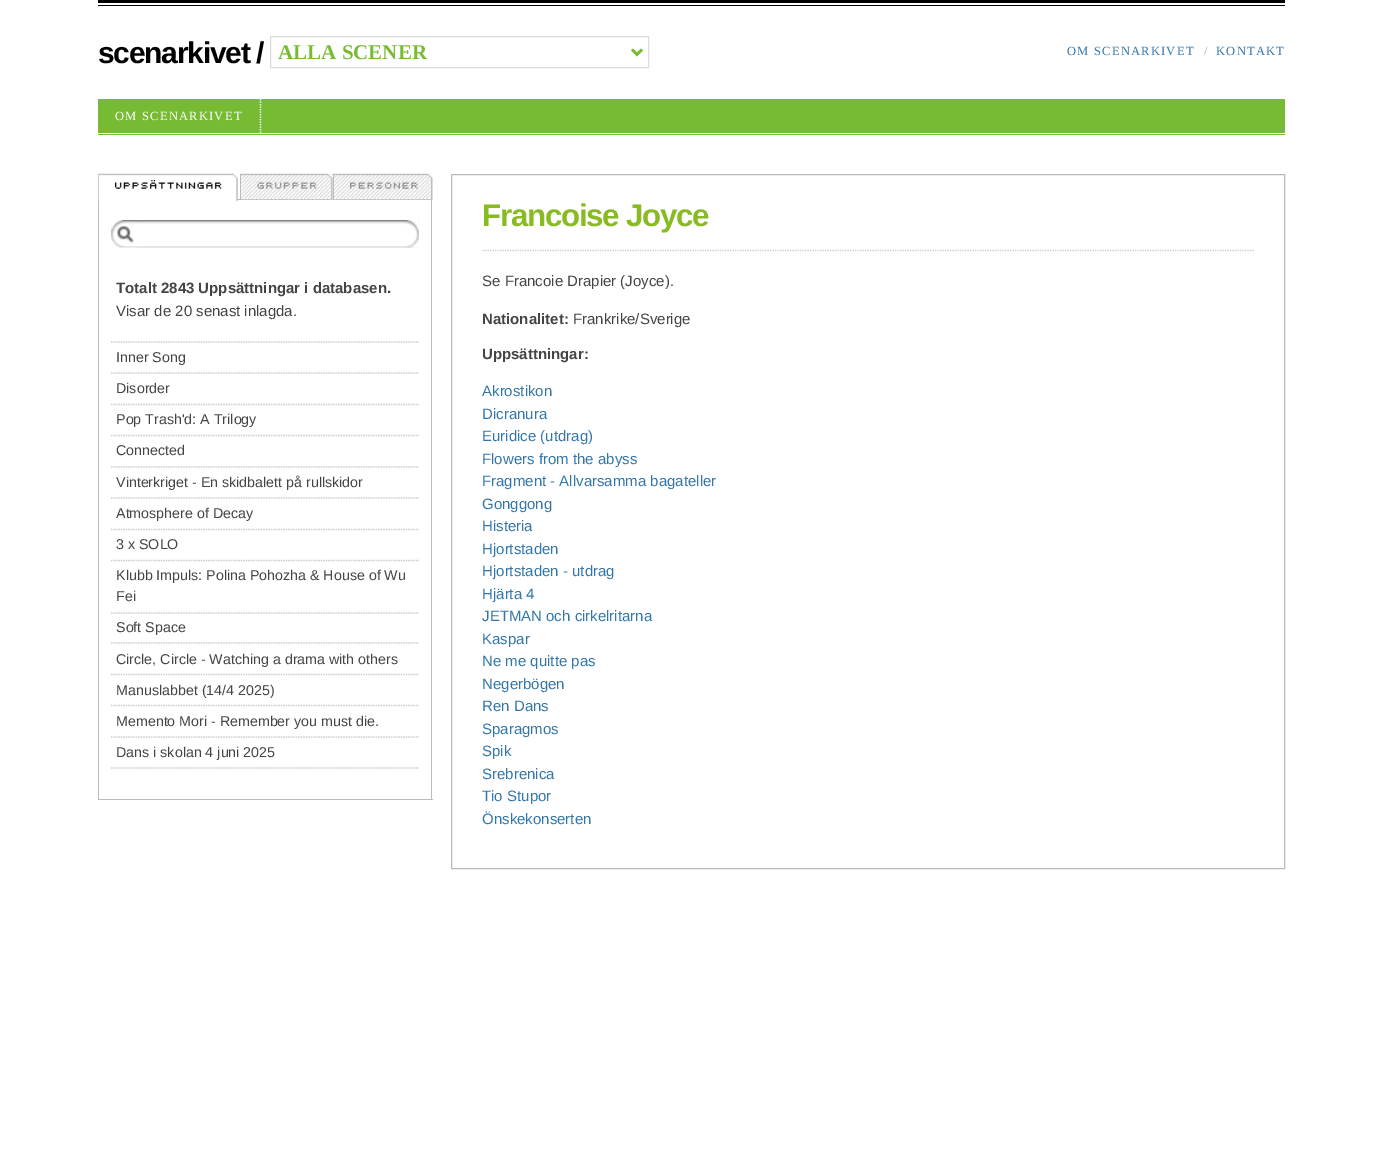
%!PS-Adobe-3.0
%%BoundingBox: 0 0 1382 1171
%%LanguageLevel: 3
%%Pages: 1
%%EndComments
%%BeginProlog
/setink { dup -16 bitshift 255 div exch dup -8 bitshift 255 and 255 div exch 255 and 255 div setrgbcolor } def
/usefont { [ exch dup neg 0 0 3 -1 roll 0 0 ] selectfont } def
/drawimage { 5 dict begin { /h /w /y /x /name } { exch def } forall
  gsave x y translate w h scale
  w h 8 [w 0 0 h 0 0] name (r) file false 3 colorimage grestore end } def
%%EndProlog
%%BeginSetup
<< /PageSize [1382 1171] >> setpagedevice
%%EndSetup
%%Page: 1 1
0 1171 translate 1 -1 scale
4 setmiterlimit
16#FFFFFF setink
0 0 1382 1171 rectfill
16#000000 setink
98 0 1187 3 rectfill
98 5 1187 1 rectfill
/LiberationSans-Bold 30 usefont
98 63 moveto -1.25 0 (scenarkivet /) ashow
16#DDDDDD setink
270.5 36.5 378 31 rectstroke
16#77BB33 setink
2.5 setlinewidth
632 49.5 moveto 637 54.5 lineto 642 49.5 lineto stroke
/LiberationSerif-Bold 21 usefont
278 59 moveto (ALLA SCENER) show
/LiberationSerif-Regular 12.5 usefont
16#3377AA setink
1067 55 moveto 1.25 0 (OM SCENARKIVET) ashow
16#AAAAAA setink
1204 55 moveto (/) show
16#3377AA setink
1216 55 moveto 1.25 0 (KONTAKT) ashow
16#77BB33 setink
98 99 1187 36 rectfill
16#FFFFFF setink
98 133 1187 1 rectfill
1.2 setlinewidth
[1.25 1.25] 0 setdash
260.5 99 moveto 260.5 132.5 lineto stroke
115 120 moveto 1.25 0 (OM SCENARKIVET) ashow
[
    [431 174 1 626 16#BBBBBB]
    [98 799 335 1 16#BBBBBB]
    [98 174 1 626 16#BBBBBB]
    [237 199 194 1 16#BBBBBB]
] { aload pop setink rectfill } forall
(img1.raw) 98 173 140 29 drawimage
(img2.raw) 237 177 1 22 drawimage
(img3.raw) 115 180 107 9 drawimage
(img4.raw) 240 173 94 27 drawimage
240 174 1 26 rectfill
(img5.raw) 241 175 91 24 drawimage
(img6.raw) 257 182 60 7 drawimage
(img7.raw) 332 173 101 27 drawimage
333 174 1 26 rectfill
(img8.raw) 334 175 97 24 drawimage
(img9.raw) 350 182 68 7 drawimage
(img10.raw) 111 220 308 28 drawimage
(img11.raw) 136 220 283 28 drawimage
/LiberationSans-Bold 15 usefont
16#444444 setink
116 293 moveto (Totalt 2843 Uppsättningar i databasen.) show
/LiberationSans-Regular 15 usefont
116 316 moveto (Visar de 20 senast inlagda.) show
16#CCCCCC setink
111 342 moveto 419 342 lineto stroke
111 373 moveto 419 373 lineto stroke
/LiberationSans-Regular 14.25 usefont
16#444444 setink
116 362 moveto (Inner Song) show
16#CCCCCC setink
111 404.5 moveto 419 404.5 lineto stroke
16#444444 setink
116 393 moveto (Disorder) show
16#CCCCCC setink
111 435.5 moveto 419 435.5 lineto stroke
16#444444 setink
116 424 moveto (Pop Trash'd: A Trilogy) show
16#CCCCCC setink
111 467 moveto 419 467 lineto stroke
16#444444 setink
116 455 moveto (Connected) show
16#CCCCCC setink
111 498 moveto 419 498 lineto stroke
16#444444 setink
116 487 moveto (Vinterkriget - En skidbalett på rullskidor) show
16#CCCCCC setink
111 529.5 moveto 419 529.5 lineto stroke
16#444444 setink
116 518 moveto (Atmosphere of Decay) show
16#CCCCCC setink
111 560.5 moveto 419 560.5 lineto stroke
16#444444 setink
116 549 moveto (3 x SOLO) show
16#CCCCCC setink
111 613 moveto 419 613 lineto stroke
16#444444 setink
116 580 moveto (Klubb Impuls: Polina Pohozha & House of Wu) show
116 601 moveto (Fei) show
16#CCCCCC setink
111 643 moveto 419 643 lineto stroke
16#444444 setink
116 632 moveto (Soft Space) show
16#CCCCCC setink
111 674.5 moveto 419 674.5 lineto stroke
16#444444 setink
116 664 moveto (Circle, Circle - Watching a drama with others) show
16#CCCCCC setink
111 705.5 moveto 419 705.5 lineto stroke
16#444444 setink
116 695 moveto (Manuslabbet \(14/4 2025\)) show
16#CCCCCC setink
111 737 moveto 419 737 lineto stroke
16#444444 setink
116 726 moveto (Memento Mori - Remember you must die.) show
16#CCCCCC setink
111 768 moveto 419 768 lineto stroke
16#444444 setink
116 757 moveto (Dans i skolan 4 juni 2025) show
16#BBBBBB setink
1 setlinewidth
[] 0 setdash
451.5 174.5 833 694 rectstroke
16#CCCCCC setink
1.2 setlinewidth
[1.25 1.25] 0 setdash
482.5 250.5 moveto 1254 250.5 lineto stroke
/LiberationSans-Bold 31.25 usefont
16#88BB22 setink
482 226 moveto -1.25 0 (Francoise Joyce) ashow
/LiberationSans-Regular 15 usefont
16#444444 setink
482 286 moveto (Se Francoie Drapier \(Joyce\).) show
/LiberationSans-Bold 15 usefont
482 324 moveto (Nationalitet:) show
/LiberationSans-Regular 15 usefont
573 324 moveto (Frankrike/Sverige) show
/LiberationSans-Bold 15 usefont
482 359 moveto (Uppsättningar:) show
/LiberationSans-Regular 15 usefont
16#3377AA setink
[
    [(Akrostikon) 482 396]
    [(Dicranura) 482 419]
    [(Euridice \(utdrag\)) 482 441]
    [(Flowers from the abyss) 482 464]
    [(Fragment - Allvarsamma bagateller) 482 486]
    [(Gonggong) 482 509]
    [(Histeria) 482 531]
    [(Hjortstaden) 482 554]
    [(Hjortstaden - utdrag) 482 576]
    [(Hjärta 4) 482 599]
    [(JETMAN och cirkelritarna) 482 621]
    [(Kaspar) 482 644]
    [(Ne me quitte pas) 482 666]
    [(Negerbögen) 482 689]
    [(Ren Dans) 482 711]
    [(Sparagmos) 482 734]
    [(Spik) 482 756]
    [(Srebrenica) 482 779]
    [(Tio Stupor) 482 801]
    [(Önskekonserten) 482 824]
] { aload pop moveto show } forall
showpage
%%EOF
